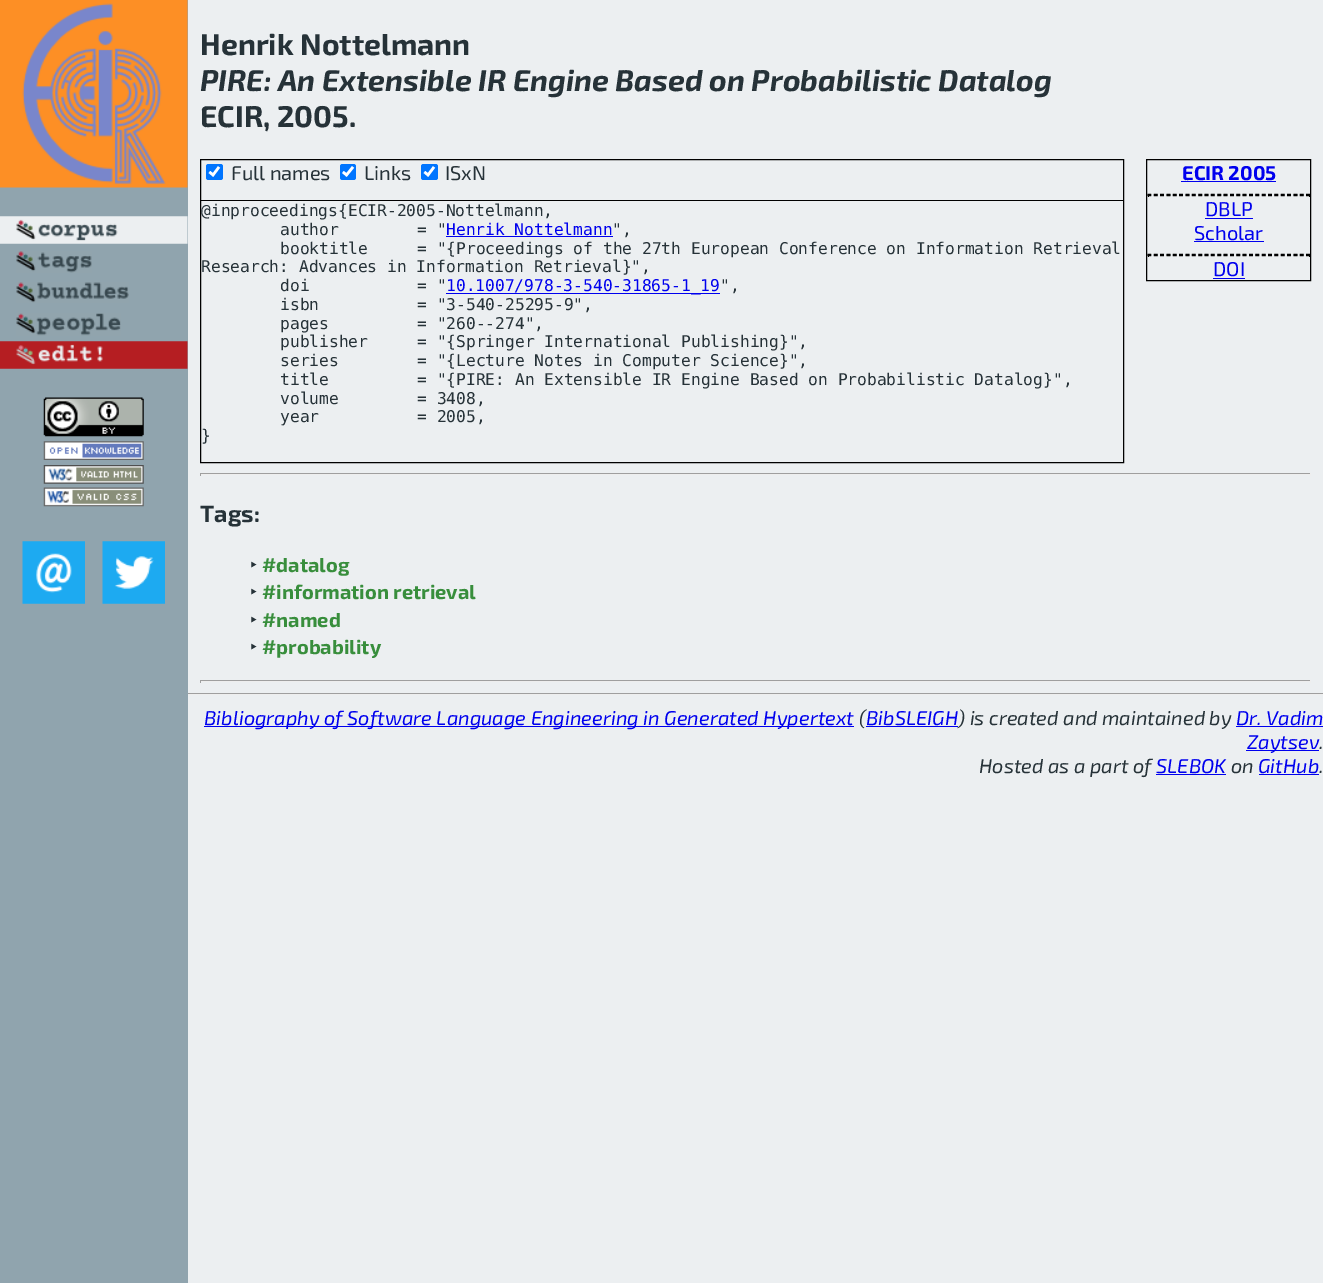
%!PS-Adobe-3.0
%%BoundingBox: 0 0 1323 1283
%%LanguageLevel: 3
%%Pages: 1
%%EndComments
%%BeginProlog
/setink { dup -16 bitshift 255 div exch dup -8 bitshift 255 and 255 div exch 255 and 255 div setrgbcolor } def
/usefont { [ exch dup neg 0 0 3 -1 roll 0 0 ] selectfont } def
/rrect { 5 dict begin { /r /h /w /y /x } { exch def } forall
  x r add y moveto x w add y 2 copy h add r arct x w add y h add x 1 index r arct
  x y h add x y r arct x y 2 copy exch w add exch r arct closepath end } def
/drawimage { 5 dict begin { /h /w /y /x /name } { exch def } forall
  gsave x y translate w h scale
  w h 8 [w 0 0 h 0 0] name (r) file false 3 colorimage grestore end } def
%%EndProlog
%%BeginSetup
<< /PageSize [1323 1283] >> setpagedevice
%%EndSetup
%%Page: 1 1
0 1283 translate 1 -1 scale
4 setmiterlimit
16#ECEFF1 setink
0 0 1323 1283 rectfill
16#90A4AE setink
0 0 188 1283 rectfill
(img1.raw) 0 0 188 188 drawimage
(img2.raw) 0 216 188 28 drawimage
(img3.raw) 16 251 76 22 drawimage
(img4.raw) 16 282 113 21 drawimage
(img5.raw) 16 313 105 23 drawimage
(img6.raw) 0 341 188 28 drawimage
(img7.raw) 43 397 101 40 drawimage
(img8.raw) 43 441 101 19 drawimage
(img9.raw) 43 465 101 19 drawimage
(img10.raw) 43 487 101 20 drawimage
(img11.raw) 22 541 63 63 drawimage
(img12.raw) 102 541 63 63 drawimage
/Exo2-Bold 30 usefont
16#263238 setink
200 55 moveto (Henrik Nottelmann) show
/Exo2-BoldItalic 30 usefont
200 91 moveto (PIRE: An Extensible IR Engine Based on Probabilistic Datalog) show
/Exo2-Bold 30 usefont
200 127 moveto (ECIR, 2005.) show
16#000000 setink
200.5 159.5 923 303 rectstroke
16#0075FF setink
206 164 17 16 2.5 rrect fill
16#FFFFFF setink
2.6 setlinewidth
209.5 172 moveto 213 175 lineto 219 167 lineto stroke
/Exo2-Regular 20 usefont
16#263238 setink
231 180 moveto (Full names) show
16#0075FF setink
340 164 16 16 2.5 rrect fill
16#FFFFFF setink
343 172 moveto 346.5 175 lineto 353 167 lineto stroke
16#263238 setink
364 180 moveto (Links) show
16#0075FF setink
421 164 17 16 2.5 rrect fill
16#FFFFFF setink
424.5 172 moveto 428 175 lineto 434 167 lineto stroke
16#263238 setink
445 180 moveto (ISxN) show
16#000000 setink
201 200 922 1 rectfill
/DejaVuSansMono-Regular 16.25 usefont
16#263238 setink
201 216 moveto (@inproceedings{ECIR-2005-Nottelmann,) show
280 235 moveto (author        = ") show
16#0000EE setink
446 235 moveto (Henrik Nottelmann) show
446 236 167 1 rectfill
16#263238 setink
[
    [(",) 612 235]
    [(booktitle     = "{Proceedings of the 27th European Conference on Information Retrieval) 280 254]
    [(Research: Advances in Information Retrieval}",) 201 272]
    [(doi           = ") 280 291]
] { aload pop moveto show } forall
16#0000EE setink
446 293 274 1 rectfill
446 291 moveto (10.1007/978-3-540-31865-1_19) show
16#263238 setink
[
    [(",) 720 291]
    [(isbn          = "3-540-25295-9",) 280 310]
    [(pages         = "260--274",) 280 329]
    [(publisher     = "{Springer International Publishing}",) 280 347]
    [(series        = "{Lecture Notes in Computer Science}",) 280 366]
    [(title         = "{PIRE: An Extensible IR Engine Based on Probabilistic Datalog}",) 280 385]
    [(volume        = 3408,) 280 404]
    [(year          = 2005,) 280 422]
    [(}) 201 441]
] { aload pop moveto show } forall
16#000000 setink
1 setlinewidth
1146.5 159.5 164 121 rectstroke
/Exo2-Bold 20 usefont
16#0000EE setink
1182 180 moveto (ECIR 2005) show
1181 181 95 1 rectfill
16#000000 setink
1.2 setlinewidth
[3.75 2.6] 0 setdash
1147.5 194.5 moveto 1310 194.5 lineto stroke
1309 194 1 3 rectfill
1147.5 195.5 moveto 1310 195.5 lineto stroke
1148 194 1 3 rectfill
/Exo2-Regular 20 usefont
16#0000EE setink
1205 216 moveto (DBLP) show
1205 218 48 1 rectfill
1194 240 moveto (Scholar) show
1194 241 70 1 rectfill
16#000000 setink
1147.5 254.5 moveto 1310 254.5 lineto stroke
1309 254 1 3 rectfill
1147.5 255.5 moveto 1310 255.5 lineto stroke
1148 254 1 3 rectfill
16#0000EE setink
1213 276 moveto (DOI) show
[
    [1213 278 32 1 16#0000EE]
    [200 473 1111 1 16#9F9F9F]
    [1310 473 1 3 16#EEEEEE]
    [200 474 1111 1 16#EEEEEE]
    [200 473 1 3 16#9F9F9F]
] { aload pop setink rectfill } forall
/Exo2-Bold 23.5 usefont
16#263238 setink
200 522 moveto (Tags:) show
/NotoSans-Regular 20 usefont
250 572 moveto (‣) show
/Exo2-Bold 20 usefont
16#388E3C setink
262 572 moveto (#datalog) show
/NotoSans-Regular 20 usefont
16#263238 setink
250 599 moveto (‣) show
/Exo2-Bold 20 usefont
16#388E3C setink
262 599 moveto (#information retrieval) show
/NotoSans-Regular 20 usefont
16#263238 setink
250 627 moveto (‣) show
/Exo2-Bold 20 usefont
16#388E3C setink
262 627 moveto (#named) show
/NotoSans-Regular 20 usefont
16#263238 setink
250 654 moveto (‣) show
/Exo2-Bold 20 usefont
16#388E3C setink
262 654 moveto (#probability) show
[
    [200 680 1111 1 16#9F9F9F]
    [1310 680 1 3 16#EEEEEE]
    [200 681 1111 1 16#EEEEEE]
    [200 680 1 3 16#9F9F9F]
    [188 693 1135 1 16#9F9F9F]
    [188 694 1135 1 16#EEEEEE]
    [204 726 650 1 16#0000EE]
] { aload pop setink rectfill } forall
/Exo2-Italic 20 usefont
204 725 moveto (Bibliography of Software Language Engineering in Generated Hypertext) show
16#263238 setink
859 725 moveto (\() show
16#0000EE setink
866 725 moveto (BibSLEIGH) show
866 726 92 1 rectfill
16#263238 setink
958 725 moveto (\) is created and maintained by) show
16#0000EE setink
1236 725 moveto (Dr. Vadim) show
1236 726 87 1 rectfill
1246 750 73 1 rectfill
1247 749 moveto (Zaytsev) show
16#263238 setink
1319 749 moveto (.) show
979 773 moveto (Hosted as a part of) show
16#0000EE setink
1156 774 70 1 rectfill
1156 773 moveto (SLEBOK) show
16#263238 setink
1231 773 moveto (on) show
16#0000EE setink
1258 773 moveto (GitHub) show
16#263238 setink
1319 773 moveto (.) show
16#0000EE setink
1259 774 60 1 rectfill
showpage
%%EOF
